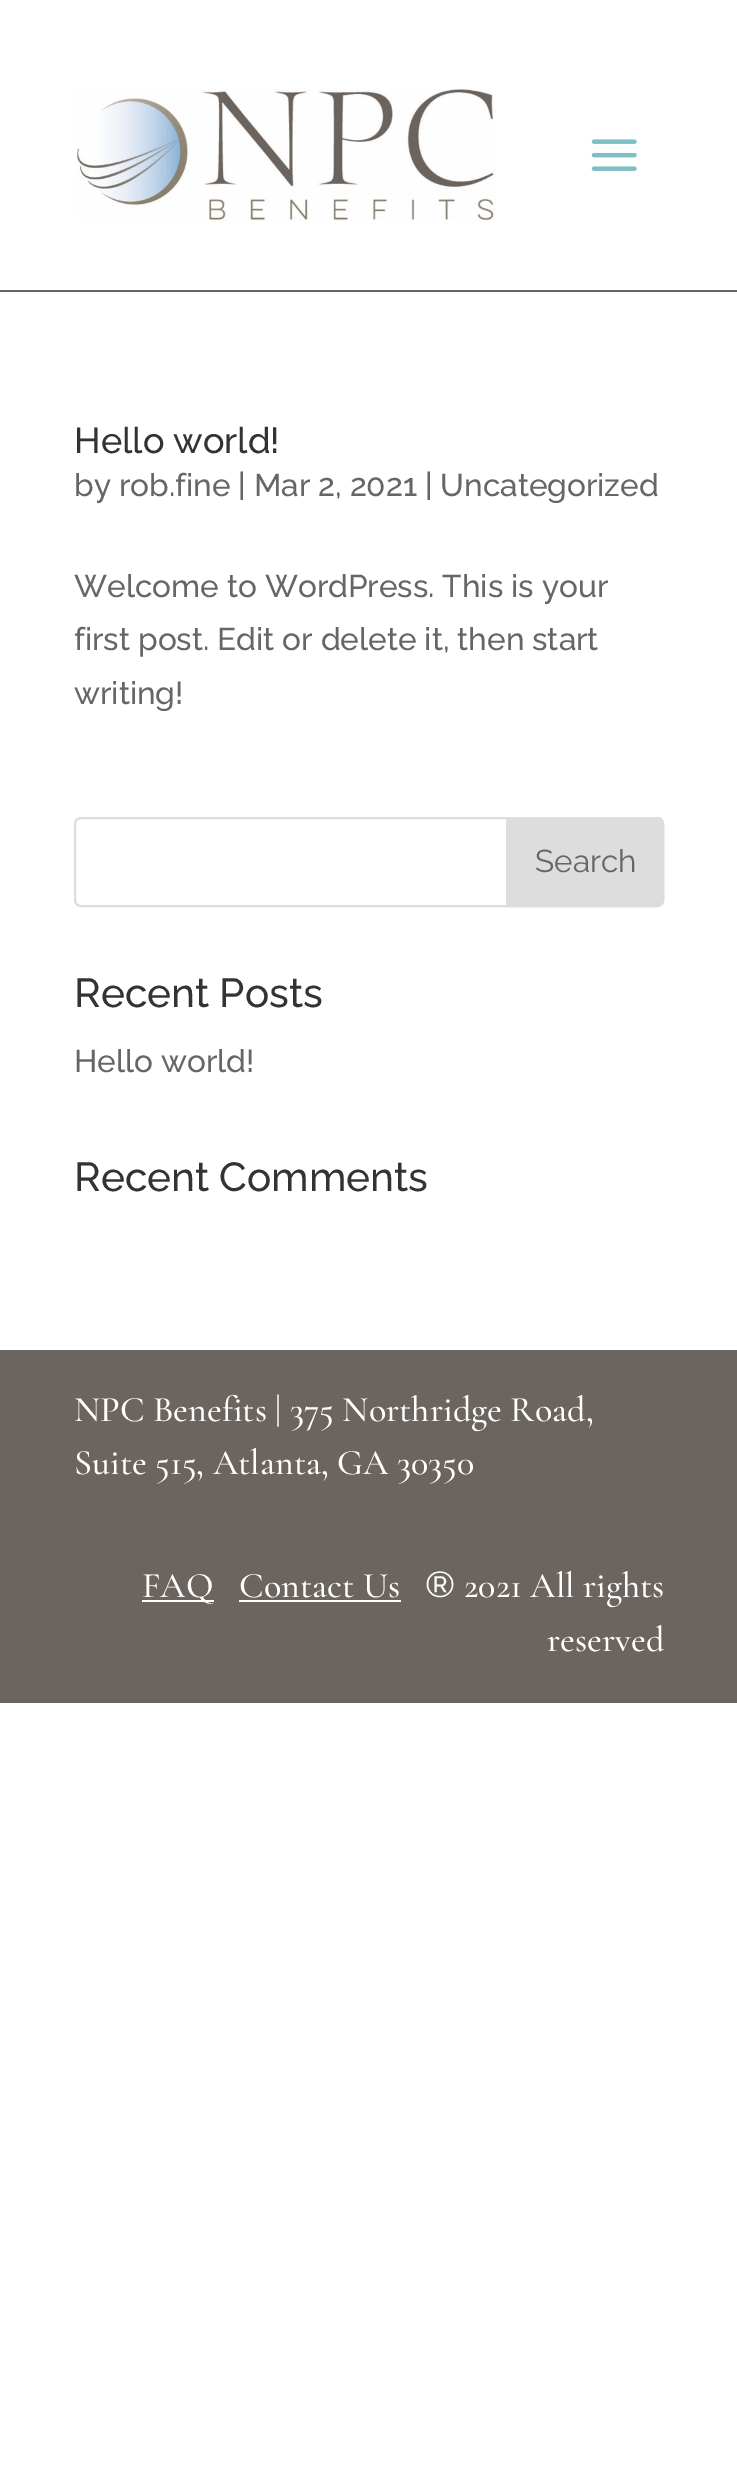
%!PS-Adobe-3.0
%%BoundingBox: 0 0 737 2475
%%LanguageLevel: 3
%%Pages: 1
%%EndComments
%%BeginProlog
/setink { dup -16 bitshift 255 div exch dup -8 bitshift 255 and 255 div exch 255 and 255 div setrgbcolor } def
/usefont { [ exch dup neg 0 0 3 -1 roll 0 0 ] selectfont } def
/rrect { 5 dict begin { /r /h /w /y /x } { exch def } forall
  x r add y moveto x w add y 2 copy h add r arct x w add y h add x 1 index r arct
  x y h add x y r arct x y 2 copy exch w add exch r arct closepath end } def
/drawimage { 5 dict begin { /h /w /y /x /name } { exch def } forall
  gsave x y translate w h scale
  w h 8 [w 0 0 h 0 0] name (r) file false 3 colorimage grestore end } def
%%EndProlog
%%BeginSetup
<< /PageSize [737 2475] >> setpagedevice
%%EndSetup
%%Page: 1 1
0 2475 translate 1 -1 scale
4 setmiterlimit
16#FFFFFF setink
0 0 737 2475 rectfill
16#6C655F setink
0 290 737 2 rectfill
(img1.raw) 77 89 419 132 drawimage
(img2.raw) 591 139 46 32 drawimage
/Raleway-Medium 36 usefont
16#333333 setink
74 453 moveto (Hello world!) show
/Raleway-Medium 31.5 usefont
16#666666 setink
[
    [(by rob.fine | Mar 2, 2021 | Uncategorized) 74 496]
    [(Welcome to WordPress. This is your) 74 597]
    [(first post. Edit or delete it, then start) 74 650]
    [(writing!) 74 704]
] { aload pop moveto show } forall
16#DDDDDD setink
2 setlinewidth
75 818 588 88 6 rrect stroke
507 818 moveto 657 818 lineto 660.5 818 663 820.5 663 824 curveto 663 900 lineto 663 903.5 660.5 906 657 906 curveto 507 906 lineto closepath gsave fill grestore
stroke
/Raleway-Regular 31.5 usefont
16#666666 setink
535 872 moveto (Search) show
/Raleway-Medium 40.5 usefont
16#333333 setink
74 1007 moveto (Recent Posts) show
/Raleway-Medium 31.5 usefont
16#666666 setink
74 1072 moveto (Hello world!) show
/Raleway-Medium 40.5 usefont
16#333333 setink
74 1191 moveto (Recent Comments) show
16#6C655F setink
0 1350 737 353 rectfill
/CormorantGaramond-Medium 36 usefont
16#FFFFFF setink
74 1421 moveto (NPC Benefits | 375 Northridge Road,) show
74 1474 moveto (Suite 515, Atlanta, GA 30350) show
142 1600 72 2 rectfill
142 1597 moveto (FAQ) show
239 1597 moveto (Contact Us) show
239 1600 162 2 rectfill
/Raleway-Medium 36 usefont
425 1597 moveto (®) show
/CormorantGaramond-Medium 36 usefont
464 1597 moveto (2021 All rights) show
547 1651 moveto (reserved) show
showpage
%%EOF
